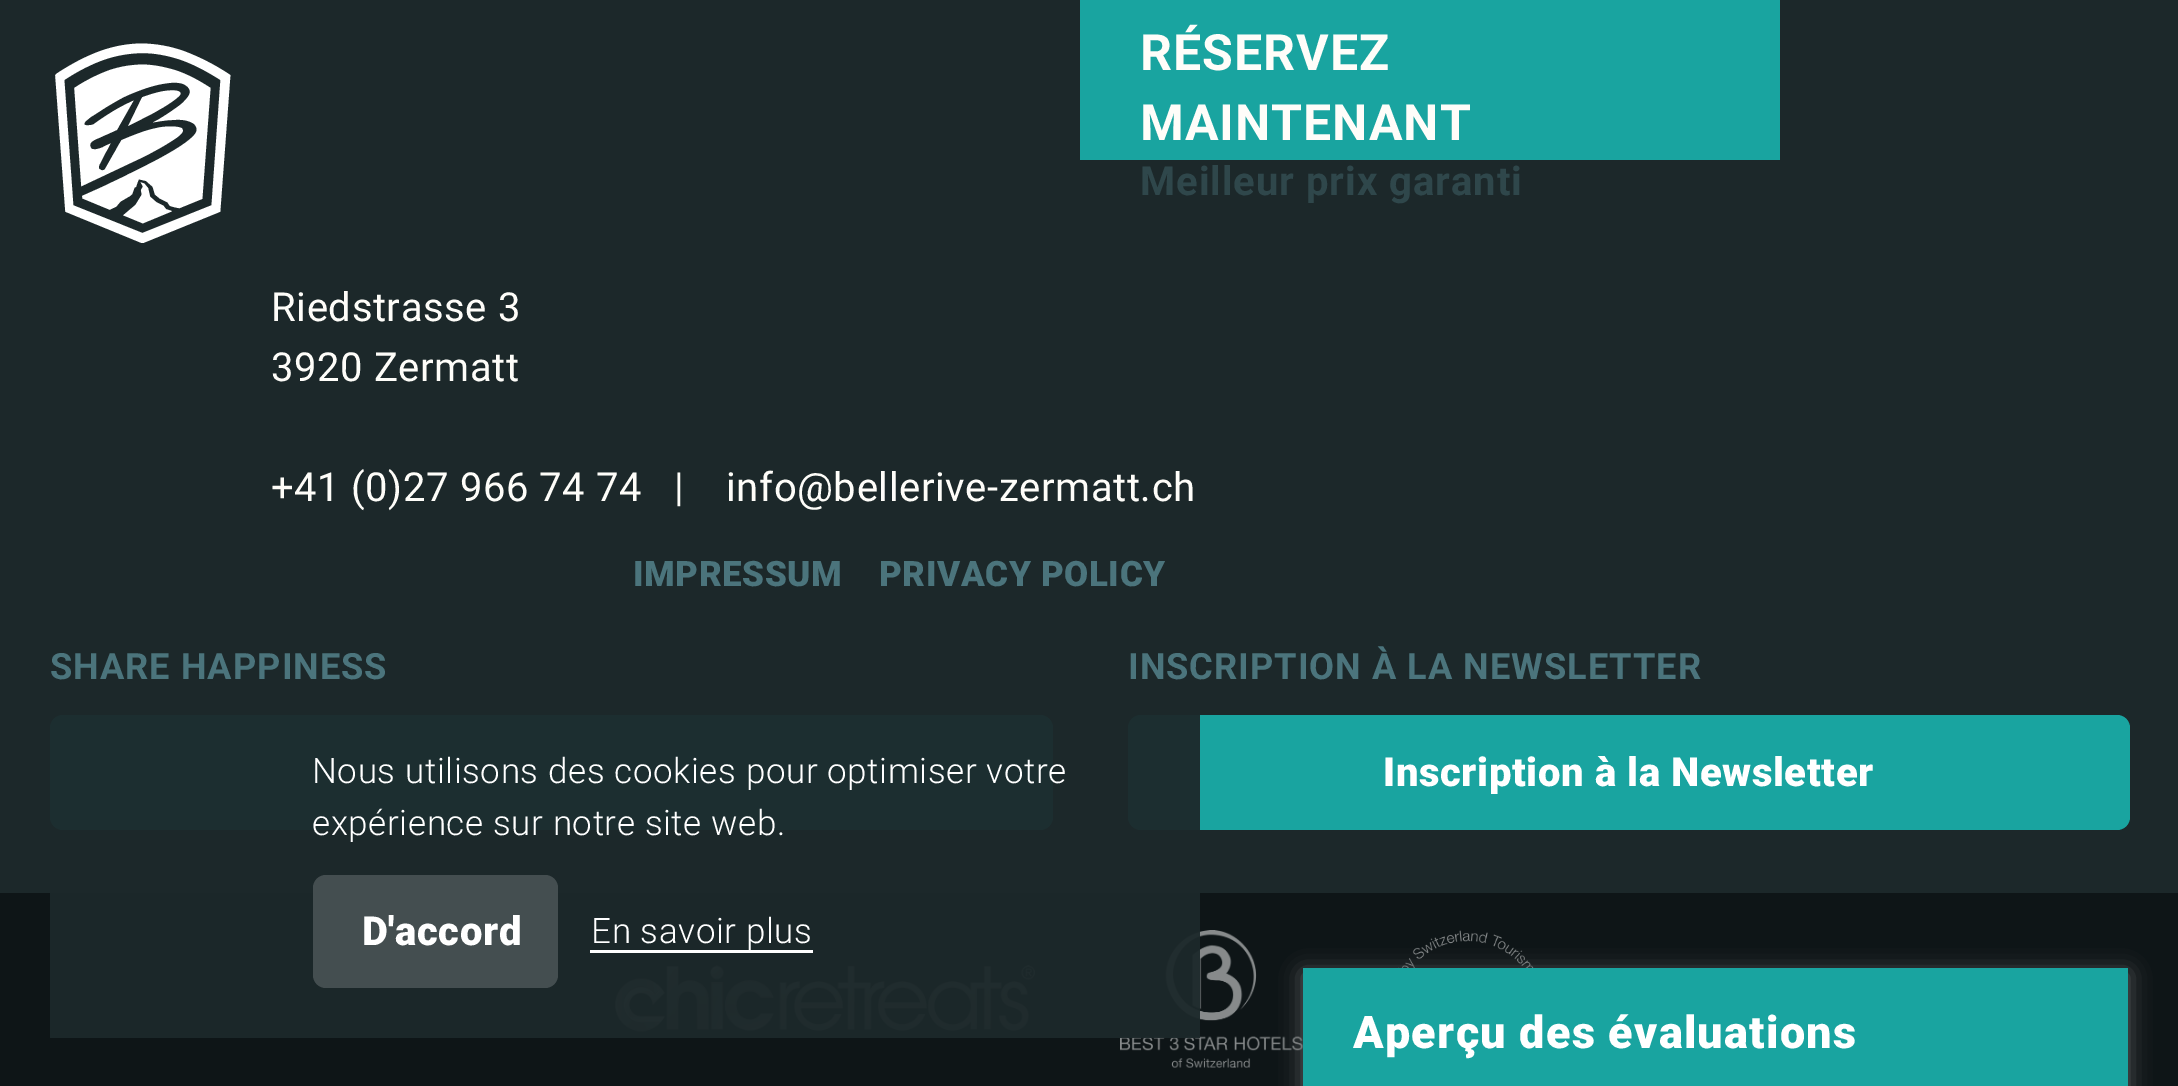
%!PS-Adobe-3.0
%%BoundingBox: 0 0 2178 1086
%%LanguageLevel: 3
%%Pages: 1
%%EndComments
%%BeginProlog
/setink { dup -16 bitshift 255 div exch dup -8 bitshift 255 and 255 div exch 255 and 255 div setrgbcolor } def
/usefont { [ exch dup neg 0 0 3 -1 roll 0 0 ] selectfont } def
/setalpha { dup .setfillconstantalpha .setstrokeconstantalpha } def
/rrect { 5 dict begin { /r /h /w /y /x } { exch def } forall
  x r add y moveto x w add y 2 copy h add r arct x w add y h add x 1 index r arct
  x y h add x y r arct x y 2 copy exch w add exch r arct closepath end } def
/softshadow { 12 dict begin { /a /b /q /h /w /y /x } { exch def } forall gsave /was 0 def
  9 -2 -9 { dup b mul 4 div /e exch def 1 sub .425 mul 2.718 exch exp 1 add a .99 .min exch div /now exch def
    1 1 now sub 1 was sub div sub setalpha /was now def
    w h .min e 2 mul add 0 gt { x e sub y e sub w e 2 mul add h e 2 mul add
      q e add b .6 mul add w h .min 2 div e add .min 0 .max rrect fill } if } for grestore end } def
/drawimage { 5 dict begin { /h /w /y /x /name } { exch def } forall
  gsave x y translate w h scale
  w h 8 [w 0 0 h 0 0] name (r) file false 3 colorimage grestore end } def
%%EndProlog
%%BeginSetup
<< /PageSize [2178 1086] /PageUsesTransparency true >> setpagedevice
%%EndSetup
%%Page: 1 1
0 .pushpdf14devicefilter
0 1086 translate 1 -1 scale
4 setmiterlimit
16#0E1517 setink
0 0 2178 1086 rectfill
16#1C282A setink
0 0 2178 893 rectfill
16#19A4A0 setink
1080 0 700 160 rectfill
/Roboto-Bold 50 usefont
16#FEFDF9 setink
1140 70 moveto 1 0 (RÉSERVEZ) ashow
1140 140 moveto 1 0 (MAINTENANT) ashow
/Roboto-Bold 40 usefont
16#2F474B setink
1140 195 moveto 1 0 (Meilleur prix garanti) ashow
/Roboto-Regular 40 usefont
16#FEFDF9 setink
271 321 moveto 0.6 0 (Riedstrasse 3) ashow
271 381 moveto 0.6 0 (3920 Zermatt) ashow
271 501 moveto 0.6 0 (+41 \(0\)27 966 74 74) ashow
674 501 moveto 0.6 0 (|) ashow
726 501 moveto 0.6 0 (info@bellerive-zermatt.ch) ashow
/Roboto-Black 35 usefont
16#4B747C setink
633 586 moveto 0.6 0 (IMPRESSUM) ashow
879 586 moveto 0.6 0 (PRIVACY POLICY) ashow
/Roboto-Bold 36.25 usefont
50 679 moveto 1 0 (SHARE HAPPINESS) ashow
16#19A4A0 setink
50 715 1003 115 13 rrect fill
16#4B747C setink
1128 679 moveto 1 0 (INSCRIPTION À LA NEWSLETTER) ashow
16#19A4A0 setink
1128 715 1002 115 13 rrect fill
/Roboto-Black 40 usefont
16#FFFFFF setink
1383 786 moveto 0.6 0 (Inscription à la Newsletter) ashow
(img1.raw) 1120 930 183 138 drawimage
(img2.raw) 1398 930 136 38 drawimage
(img3.raw) 615 965 420 67 drawimage
/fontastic-Regular 200 usefont
43 243 moveto 0.6 0 (b) ashow
0.95 setalpha
16#1C282A setink
50 715 1150 323 rectfill
/Roboto-Light 35 usefont
1 setalpha
16#FFFFFF setink
312 783 moveto 0.6 0 (Nous utilisons des cookies pour optimiser votre) ashow
312 835 moveto 0.6 0 (expérience sur notre site web.) ashow
16#444E50 setink
313 875 245 113 13 rrect fill
/Roboto-Black 40 usefont
16#FFFFFF setink
362 945 moveto 0.6 0 (D'accord) ashow
/Roboto-Light 35 usefont
591 943 moveto 0.6 0 (En savoir plus) ashow
590 950 223 3 rectfill
16#6C6D6E setink
1303 973 825 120 0 11 0.84 softshadow
16#19A4A0 setink
1303 968 825 118 rectfill
/Roboto-Black 45 usefont
16#FFFFFF setink
1353 1048 moveto 1.25 0 (Aperçu des évaluations) ashow
.poppdf14devicefilter showpage
%%EOF
